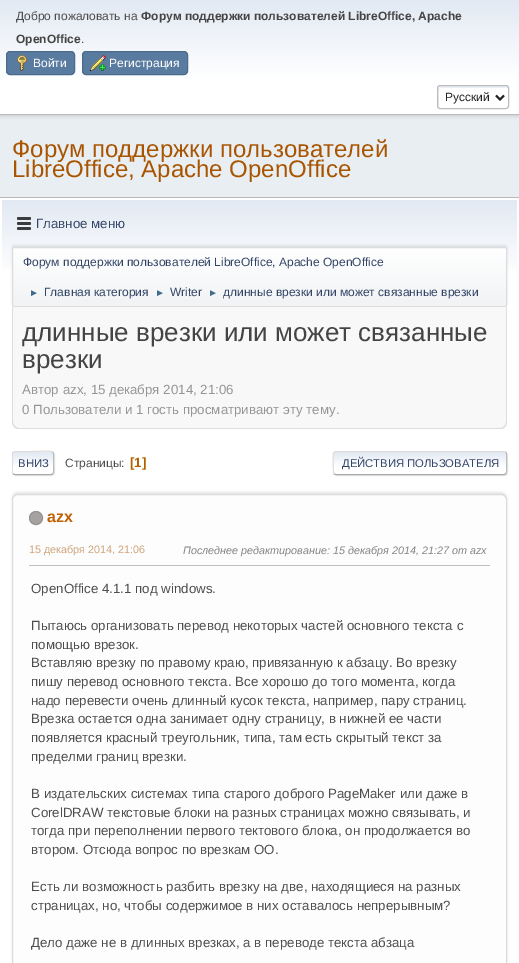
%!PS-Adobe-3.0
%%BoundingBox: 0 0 519 963
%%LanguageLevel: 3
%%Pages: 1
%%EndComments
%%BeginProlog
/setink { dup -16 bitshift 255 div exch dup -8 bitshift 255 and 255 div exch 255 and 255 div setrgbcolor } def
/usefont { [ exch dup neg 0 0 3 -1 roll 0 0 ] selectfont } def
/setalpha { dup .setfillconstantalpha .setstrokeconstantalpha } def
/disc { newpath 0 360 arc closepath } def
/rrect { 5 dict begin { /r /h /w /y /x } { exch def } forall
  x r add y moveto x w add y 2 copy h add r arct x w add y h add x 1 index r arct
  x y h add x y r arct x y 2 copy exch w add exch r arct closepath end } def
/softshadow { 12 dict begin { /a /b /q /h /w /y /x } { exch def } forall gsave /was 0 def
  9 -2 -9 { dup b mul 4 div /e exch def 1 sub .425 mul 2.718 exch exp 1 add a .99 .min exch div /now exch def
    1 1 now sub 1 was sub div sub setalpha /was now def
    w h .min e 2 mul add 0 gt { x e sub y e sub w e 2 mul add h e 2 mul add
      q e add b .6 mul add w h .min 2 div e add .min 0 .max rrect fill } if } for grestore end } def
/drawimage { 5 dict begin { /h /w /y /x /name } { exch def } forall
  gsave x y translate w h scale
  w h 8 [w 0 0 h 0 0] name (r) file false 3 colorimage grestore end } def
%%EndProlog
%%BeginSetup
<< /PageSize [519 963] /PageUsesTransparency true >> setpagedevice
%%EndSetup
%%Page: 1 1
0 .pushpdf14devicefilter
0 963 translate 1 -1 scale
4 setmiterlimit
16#E9EEF2 setink
0 0 519 963 rectfill
16#000000 setink
0 1 519 115 0 2 0.16 softshadow
gsave 0 0 moveto 519 0 lineto 519 114 lineto 0 114 lineto closepath clip newpath
<< /ShadingType 2 /ColorSpace /DeviceRGB /Coords [260 0 260 114] /Extend [true true] /Function << /FunctionType 3 /Domain [0 1] /Functions [<< /FunctionType 2 /Domain [0 1] /C0 [0.886 0.914 0.953] /C1 [1 1 1] /N 1 >> << /FunctionType 2 /Domain [0 1] /C0 [1 1 1] /C1 [1 1 1] /N 1 >>] /Bounds [0.7] /Encode [0 1 0 1] >> >> shfill grestore
16#BBBBBB setink
0 114 519 1 rectfill
/LiberationSans-Regular 12 usefont
16#4D4D4D setink
16 20 moveto (Добро пожаловать на) show
/LiberationSans-Bold 12 usefont
16#444444 setink
141 20 moveto (Форум поддержки пользователей LibreOffice, Apache) show
16 43 moveto (OpenOffice) show
/LiberationSans-Regular 12 usefont
16#4D4D4D setink
81 43 moveto (.) show
16#597B9F setink
6.5 51.5 68 23 3.5 rrect gsave fill grestore
16#4A6B8C setink
stroke
(img1.raw) 17 55 10 16 drawimage
16#FFFFFF setink
33 67 moveto (Войти) show
16#597B9F setink
82.5 51.5 105 23 3.5 rrect gsave fill grestore
16#4A6B8C setink
stroke
(img2.raw) 90 55 16 16 drawimage
16#FFFFFF setink
109 67 moveto (Регистрация) show
16#ECF1F8 setink
441 88 moveto 508 88 lineto 508 84 500 86 495 86 curveto 451 86 lineto 438 86 438 83 438 94 curveto 438 96 437 106 439 108 curveto 439 90 lineto 439 89 440 88 441 88 curveto closepath fill
16#BBBBBB setink
437.5 85.5 71 23 2.5 rrect stroke
16#222222 setink
2 setlinewidth
496 95.5 moveto 500 99.5 lineto 504 95.5 lineto stroke
445 101 moveto (Русский) show
/LiberationSans-Regular 24 usefont
16#A85400 setink
12 157 moveto (Форум поддержки пользователей) show
12 177 moveto (LibreOffice, Apache OpenOffice) show
16#FFFFFF setink
0 198 519 765 rectfill
16#B8B8B8 setink
0 197 519 1 rectfill
gsave 2 200 moveto 517 200 lineto 517 270 lineto 2 270 lineto closepath clip newpath
<< /ShadingType 2 /ColorSpace /DeviceRGB /Coords [260 200 260 309] /Extend [true true] /Function << /FunctionType 3 /Domain [0 1] /Functions [<< /FunctionType 2 /Domain [0 1] /C0 [0.886 0.914 0.953] /C1 [1 1 1] /N 1 >> << /FunctionType 2 /Domain [0 1] /C0 [1 1 1] /C1 [1 1 1] /N 1 >>] /Bounds [0.7] /Encode [0 1 0 1] >> >> shfill grestore
(img3.raw) 17 217 14 13 drawimage
/LiberationSans-Regular 13.3 usefont
16#334466 setink
36 228 moveto (Главное меню) show
16#000000 setink
12 245 495 60 2 1 0.08 softshadow
gsave
12 247 495 60 2 rrect clip newpath
gsave 12 248 moveto 507 248 lineto 507 306 lineto 12 306 lineto closepath clip newpath
<< /ShadingType 2 /ColorSpace /DeviceRGB /Coords [260 248 260 306] /Extend [true true] /Function << /FunctionType 3 /Domain [0 1] /Functions [<< /FunctionType 2 /Domain [0 1] /C0 [1 1 1] /C1 [0.945 0.953 0.961] /N 1 >> << /FunctionType 2 /Domain [0 1] /C0 [0.945 0.953 0.961] /C1 [0.945 0.953 0.961] /N 1 >>] /Bounds [0.95] /Encode [0 1 0 1] >> >> shfill grestore
grestore
16#DDDDDD setink
1 setlinewidth
12.5 247.5 494 59 1.5 rrect stroke
/LiberationSans-Regular 12 usefont
16#334466 setink
23 266 moveto (Форум поддержки пользователей LibreOffice, Apache OpenOffice) show
/LiberationSans-Regular 10 usefont
16#3F6B8C setink
29 296 moveto (►) show
/LiberationSans-Regular 12 usefont
16#334466 setink
44 296 moveto (Главная категория) show
/LiberationSans-Regular 10 usefont
16#3F6B8C setink
155 296 moveto (►) show
/LiberationSans-Regular 12 usefont
16#334466 setink
170 296 moveto (Writer) show
/LiberationSans-Regular 10 usefont
16#3F6B8C setink
208 296 moveto (►) show
/LiberationSans-Regular 12 usefont
16#334466 setink
223 296 moveto (длинные врезки или может связанные врезки) show
16#F8F8F8 setink
12 307 moveto 507 307 lineto 507 422 lineto 507 426 504 429 500 429 curveto 19 429 lineto 15 429 12 426 12 422 curveto closepath fill
16#DDDDDD setink
12 307 moveto 507 307 lineto 507 422 lineto 507 426 504 429 500 429 curveto 19 429 lineto 15 429 12 426 12 422 curveto closepath 13 307 moveto 506 307 lineto 506 422 lineto 506 425 503 428 500 428 curveto 19 428 lineto 16 428 13 425 13 422 curveto closepath eofill
/LiberationSans-Regular 26 usefont
16#444444 setink
22 341 moveto (длинные врезки или может связанные) show
22 368 moveto (врезки) show
/LiberationSans-Regular 13.3 usefont
16#959595 setink
22 394 moveto (Автор azx, 15 декабря 2014, 21:06) show
22 414 moveto (0 Пользователи и 1 гость просматривают эту тему.) show
16#DDDDDD setink
13 452 42 24 3 0.5 0.57 softshadow
16#FFFFFF setink
12 451 42 24 3 rrect fill
gsave
12 451 42 24 3 rrect clip newpath
gsave 12 452 moveto 54 452 lineto 54 474 lineto 12 474 lineto closepath clip newpath
<< /ShadingType 2 /ColorSpace /DeviceRGB /Coords [33 452 33 474] /Extend [true true] /Function << /FunctionType 3 /Domain [0 1] /Functions [<< /FunctionType 2 /Domain [0 1] /C0 [0.886 0.914 0.953] /C1 [1 1 1] /N 1 >> << /FunctionType 2 /Domain [0 1] /C0 [1 1 1] /C1 [1 1 1] /N 1 >>] /Bounds [0.7] /Encode [0 1 0 1] >> >> shfill grestore
grestore
16#BBBBBB setink
53 452 moveto 53 452.5 53.5 453.5 53.5 454 curveto 53.5 472 lineto 53.5 472.5 53 473.5 53 474 curveto stroke
16#AAAAAA setink
53 474 moveto 51 474.5 lineto 15 474.5 lineto 13 474 lineto stroke
gsave
12 444 495 38 rectclip
16#DDDDDD setink
13 474 moveto 11.5 472 12.5 465 12.5 463 curveto 12.5 451.5 10 451.5 21 451.5 curveto 33 451.5 lineto 36 451.5 51 450.5 53 452 curveto stroke
grestore
/LiberationSans-Regular 11.25 usefont
16#334466 setink
18 467 moveto (ВНИЗ) show
/LiberationSans-Regular 12 usefont
16#4D4D4D setink
65 467 moveto (Страницы:) show
/LiberationSans-Bold 13.3 usefont
16#B46100 setink
130 467 moveto ([1]) show
gsave
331 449 moveto 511 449 lineto 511 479 lineto 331 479 lineto closepath 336 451 moveto 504 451 lineto 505.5 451 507 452.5 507 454 curveto 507 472 lineto 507 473.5 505.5 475 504 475 curveto 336 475 lineto 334.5 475 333 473.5 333 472 curveto 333 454 lineto 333 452.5 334.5 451 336 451 curveto closepath eoclip newpath
16#DDDDDD setink
334 452 174 24 3 0.5 0.57 softshadow
grestore
gsave
333 451 174 24 3 rrect clip newpath
gsave 333 452 moveto 507 452 lineto 507 474 lineto 333 474 lineto closepath clip newpath
<< /ShadingType 2 /ColorSpace /DeviceRGB /Coords [420 452 420 474] /Extend [true true] /Function << /FunctionType 3 /Domain [0 1] /Functions [<< /FunctionType 2 /Domain [0 1] /C0 [0.886 0.914 0.953] /C1 [1 1 1] /N 1 >> << /FunctionType 2 /Domain [0 1] /C0 [1 1 1] /C1 [1 1 1] /N 1 >>] /Bounds [0.7] /Encode [0 1 0 1] >> >> shfill grestore
grestore
16#BBBBBB setink
506 452 moveto 506 452.5 506.5 453.5 506.5 454 curveto 506.5 472 lineto 506.5 472.5 506 473.5 506 474 curveto stroke
16#AAAAAA setink
506 474 moveto 504 474.5 lineto 336 474.5 lineto 334 474 lineto stroke
16#DDDDDD setink
334 474 moveto 333 472.5 333 455 333.5 453.5 curveto 334 452 335 451.5 336 451.5 curveto 504 451.5 lineto 506 452 lineto stroke
/LiberationSans-Regular 11.25 usefont
16#334466 setink
342 467 moveto (ДЕЙСТВИЯ ПОЛЬЗОВАТЕЛЯ) show
16#000000 setink
12 492 495 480 6 1 0.1 softshadow
16#FDFDFD setink
12.5 494.5 494 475 5.5 rrect gsave fill grestore
16#DDDDDD setink
stroke
16#A7A2A2 setink
36 518 6.5 disc gsave fill grestore
16#969292 setink
stroke
/LiberationSans-Bold 16 usefont
16#C06002 setink
47 522 moveto (azx) show
/LiberationSans-Regular 10.8 usefont
16#CDA47B setink
29 553 moveto (15 декабря 2014, 21:06) show
/LiberationSans-Italic 10.8 usefont
16#848484 setink
183 554 moveto (Последнее редактирование: 15 декабря 2014, 21:27 от azx) show
16#BFBFBF setink
29 565 461 1 rectfill
/LiberationSans-Regular 13.3 usefont
16#4D4D4D setink
[
    [(OpenOffice 4.1.1 под windows.) 31 593]
    [(Пытаюсь организовать перевод некоторых частей основного текста с) 31 630]
    [(помощью врезок.) 31 649]
    [(Вставляю врезку по правому краю, привязанную к абзацу. Во врезку) 31 667]
    [(пишу перевод основного текста. Все хорошо до того момента, когда) 31 686]
    [(надо перевести очень длинный кусок текста, например, пару страниц.) 31 705]
    [(Врезка остается одна занимает одну страницу, в нижней ее части) 31 723]
    [(появляется красный треугольник, типа, там есть скрытый текст за) 31 742]
    [(пределми границ врезки.) 31 761]
    [(В издательских системах типа старого доброго PageMaker или даже в) 31 798]
    [(CorelDRAW текстовые блоки на разных страницах можно связывать, и) 31 817]
    [(тогда при переполнении первого тектового блока, он продолжается во) 31 835]
    [(втором. Отсюда вопрос по врезкам OO.) 31 854]
    [(Есть ли возможность разбить врезку на две, находящиеся на разных) 31 891]
    [(страницах, но, чтобы содержимое в них оставалось непрерывным?) 31 910]
    [(Дело даже не в длинных врезках, а в переводе текста абзаца) 31 947]
] { aload pop moveto show } forall
.poppdf14devicefilter showpage
%%EOF
